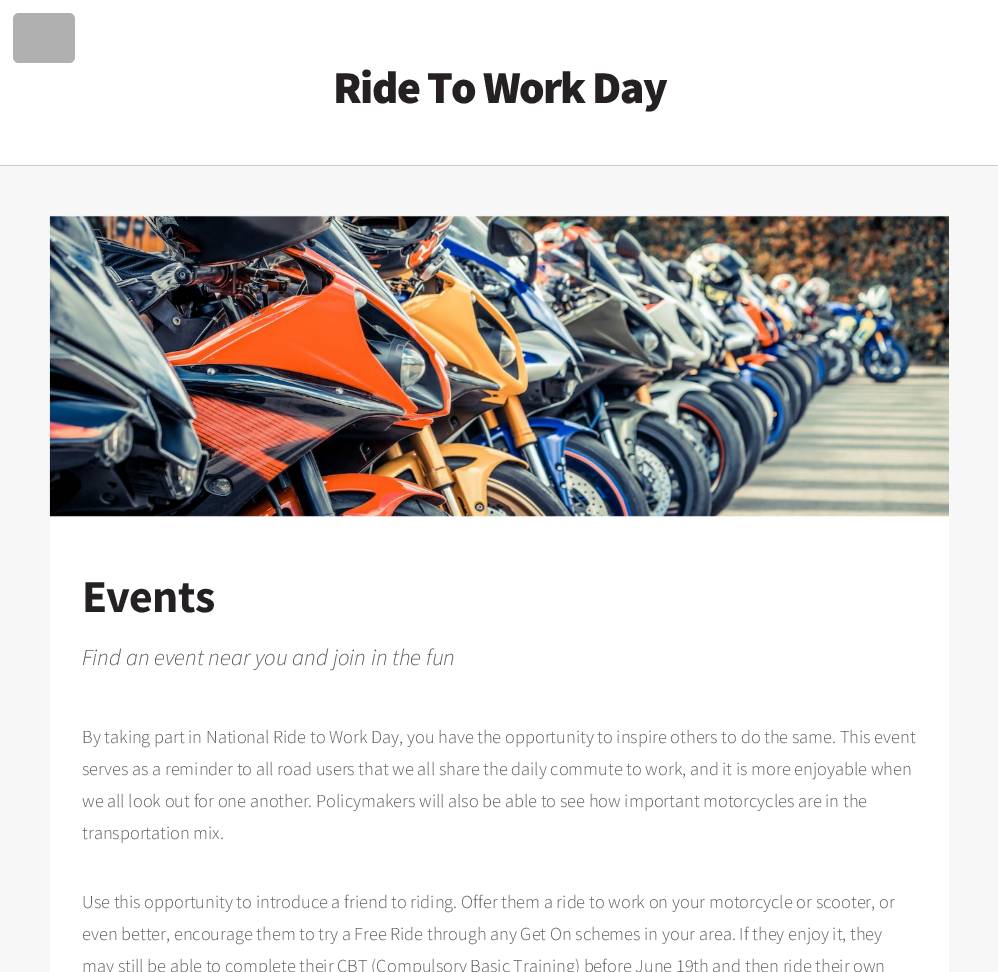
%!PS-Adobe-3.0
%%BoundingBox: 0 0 998 972
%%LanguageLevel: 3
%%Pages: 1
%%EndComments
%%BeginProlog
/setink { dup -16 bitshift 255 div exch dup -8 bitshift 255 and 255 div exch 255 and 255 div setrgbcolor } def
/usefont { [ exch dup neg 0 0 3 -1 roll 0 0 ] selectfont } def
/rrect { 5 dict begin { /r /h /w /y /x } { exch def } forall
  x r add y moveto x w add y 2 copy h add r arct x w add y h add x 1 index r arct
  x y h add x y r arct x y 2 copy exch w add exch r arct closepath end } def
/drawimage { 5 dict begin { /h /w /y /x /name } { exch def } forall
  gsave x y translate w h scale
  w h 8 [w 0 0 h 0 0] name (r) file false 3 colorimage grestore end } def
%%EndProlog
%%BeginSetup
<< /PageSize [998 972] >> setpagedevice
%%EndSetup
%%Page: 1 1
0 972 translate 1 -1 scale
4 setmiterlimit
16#FFFFFF setink
0 0 998 972 rectfill
16#B0B0B0 setink
13 13 62 50 6 rrect fill
16#CCCCCC setink
0 165 998 1 rectfill
/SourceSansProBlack-Black 45.75 usefont
16#252122 setink
333 103 moveto -1.6 0 (Ride To Work Day) ashow
16#F7F7F7 setink
0 166 998 806 rectfill
16#FFFFFF setink
50 216 899 756 rectfill
(img1.raw) 49 215 900 302 drawimage
/SourceSansPro-Bold 45.75 usefont
16#252122 setink
82 612 moveto -0.75 0 (Events) ashow
/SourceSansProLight-LightItalic 22.9 usefont
16#5D5D5D setink
82 665 moveto (Find an event near you and join in the fun) show
/SourceSansProLight-Light 18.35 usefont
[
    [(By taking part in National Ride to Work Day, you have the opportunity to inspire others to do the same. This event) 82 743]
    [(serves as a reminder to all road users that we all share the daily commute to work, and it is more enjoyable when) 82 775]
    [(we all look out for one another. Policymakers will also be able to see how important motorcycles are in the) 82 807]
    [(transportation mix.) 82 839]
    [(Use this opportunity to introduce a friend to riding. Offer them a ride to work on your motorcycle or scooter, or) 82 908]
    [(even better, encourage them to try a Free Ride through any Get On schemes in your area. If they enjoy it, they) 82 940]
    [(may still be able to complete their CBT \(Compulsory Basic Training\) before June 19th and then ride their own) 82 972]
] { aload pop moveto show } forall
showpage
%%EOF
